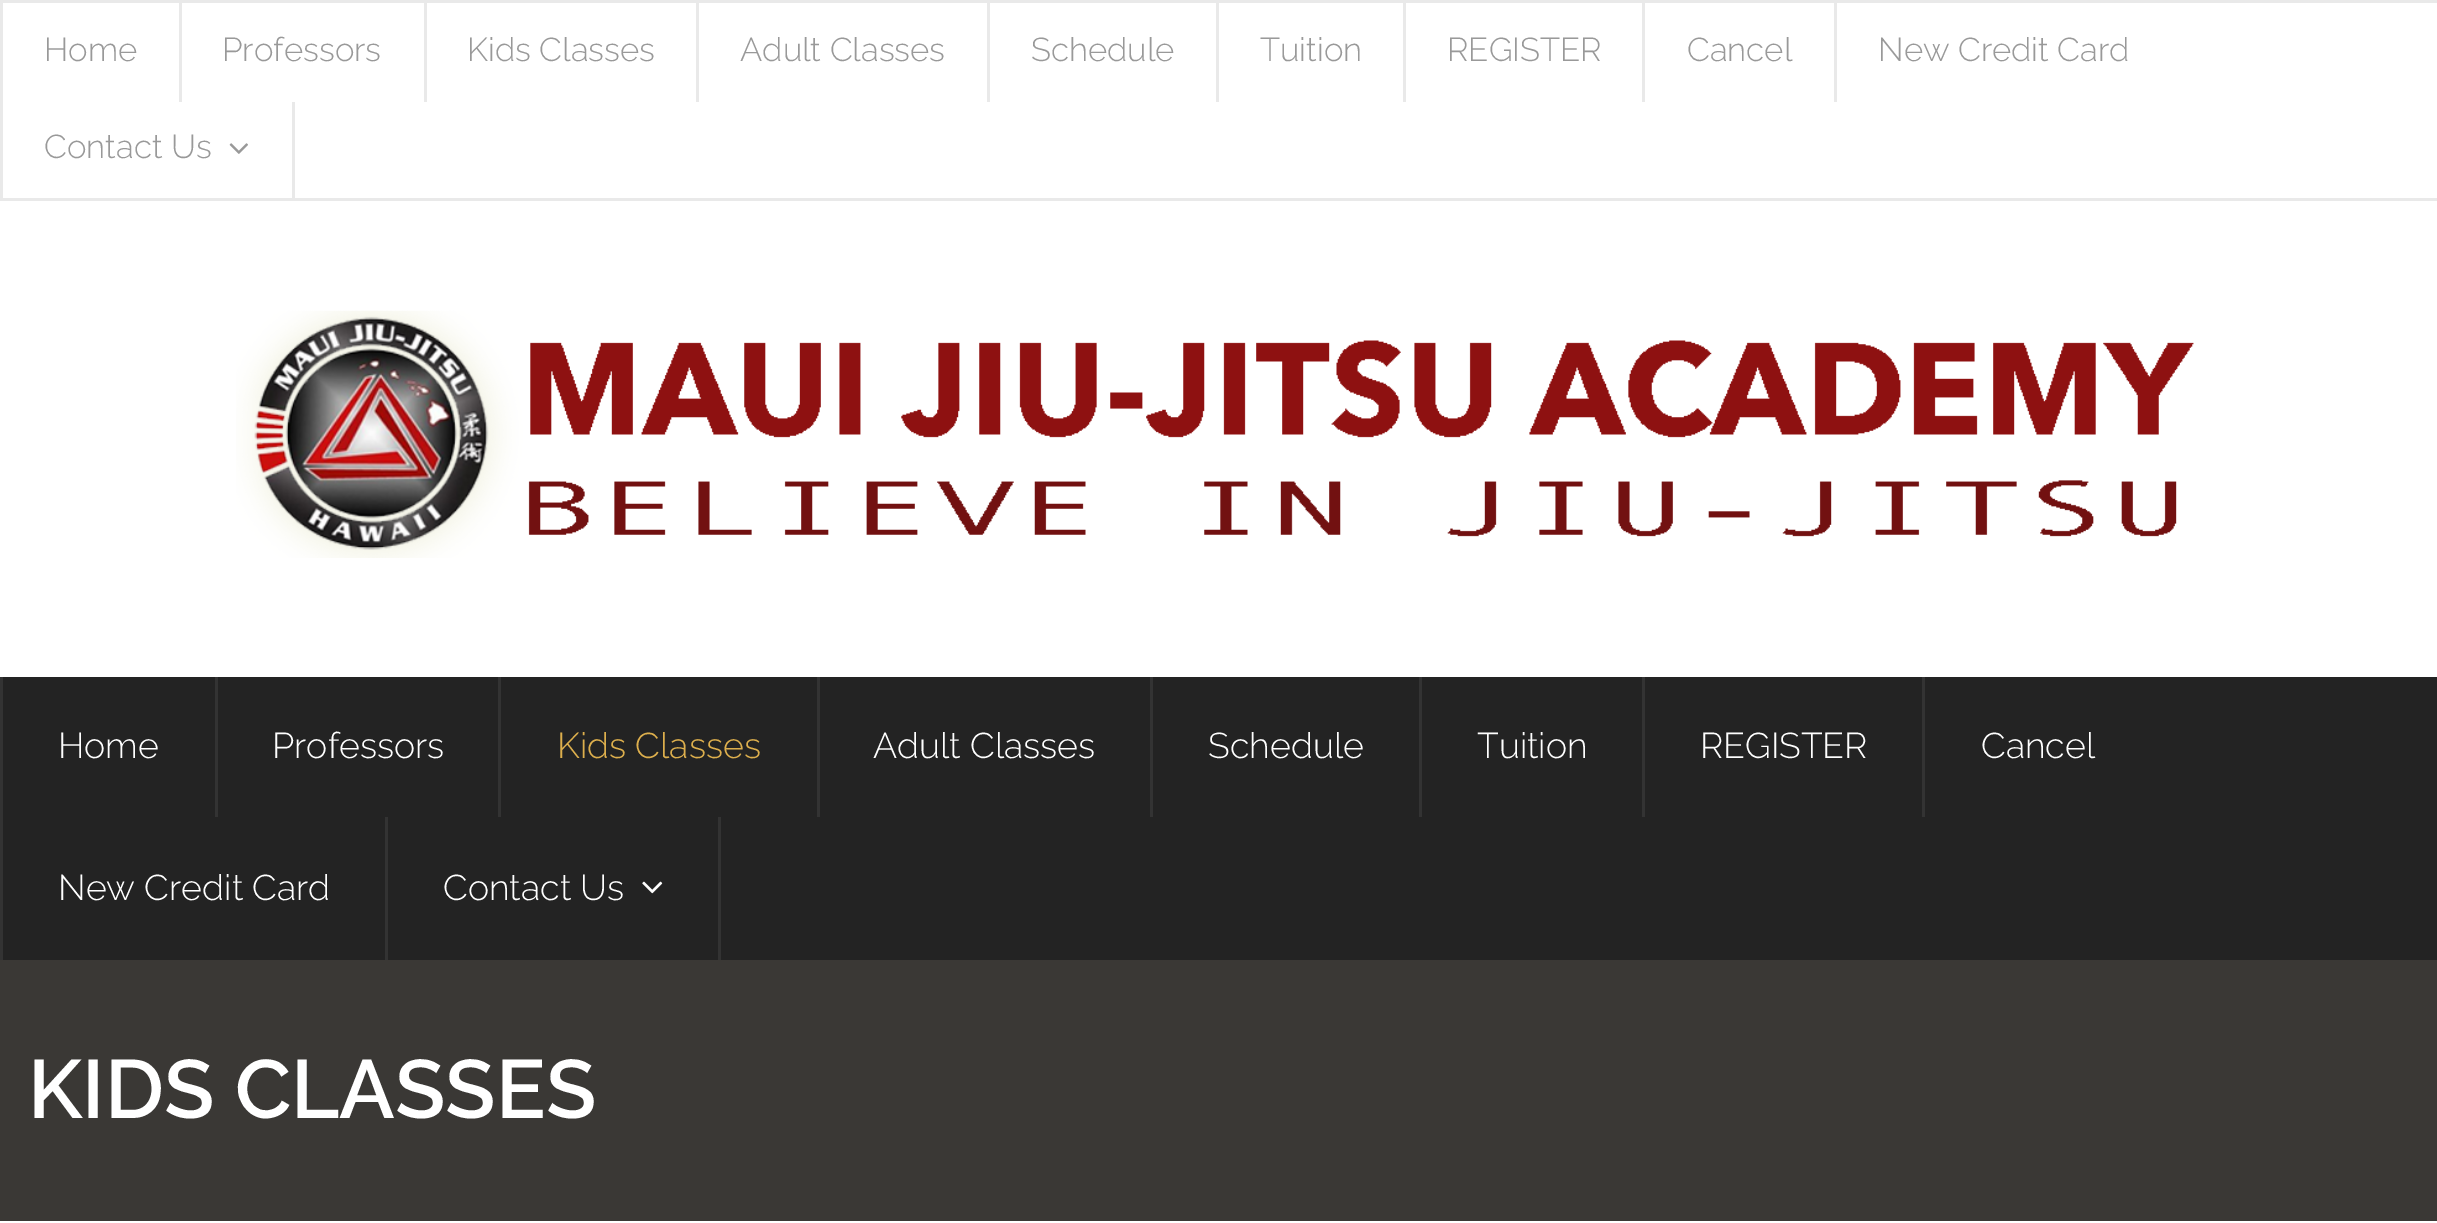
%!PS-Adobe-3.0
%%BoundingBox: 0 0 2437 1223
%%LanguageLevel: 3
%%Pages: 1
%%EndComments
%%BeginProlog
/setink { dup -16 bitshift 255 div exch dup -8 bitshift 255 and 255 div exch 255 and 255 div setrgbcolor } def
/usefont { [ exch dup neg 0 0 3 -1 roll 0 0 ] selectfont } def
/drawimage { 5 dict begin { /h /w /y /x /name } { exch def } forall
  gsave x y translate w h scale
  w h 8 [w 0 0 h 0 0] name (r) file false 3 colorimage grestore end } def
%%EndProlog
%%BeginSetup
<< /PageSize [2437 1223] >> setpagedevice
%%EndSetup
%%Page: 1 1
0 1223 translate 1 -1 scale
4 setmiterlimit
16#FFFFFF setink
0 0 2437 1223 rectfill
[
    [0 0 2437 3 16#E9E9E9]
    [0 198 2437 3 16#E9E9E9]
    [0 3 3 195 16#E9E9E9]
] { aload pop setink rectfill } forall
/Raleway-Light 33 usefont
16#999999 setink
44 61 moveto (Home) show
16#E9E9E9 setink
179 3 3 99 rectfill
16#999999 setink
222 61 moveto (Professors) show
16#E9E9E9 setink
424 3 3 99 rectfill
16#999999 setink
467 61 moveto (Kids Classes) show
16#E9E9E9 setink
696 3 3 99 rectfill
16#999999 setink
740 61 moveto (Adult Classes) show
16#E9E9E9 setink
987 3 3 99 rectfill
16#999999 setink
1031 61 moveto (Schedule) show
16#E9E9E9 setink
1216 3 3 99 rectfill
16#999999 setink
1260 61 moveto (Tuition) show
16#E9E9E9 setink
1403 3 3 99 rectfill
16#999999 setink
1447 61 moveto (REGISTER) show
16#E9E9E9 setink
1642 3 3 99 rectfill
16#999999 setink
1687 61 moveto (Cancel) show
16#E9E9E9 setink
1834 3 3 99 rectfill
16#999999 setink
1878 61 moveto (New Credit Card) show
16#E9E9E9 setink
292 102 3 96 rectfill
16#999999 setink
44 158 moveto (Contact Us) show
(img1.raw) 229 143 19 11 drawimage
(img2.raw) 236 310 1958 248 drawimage
16#232323 setink
3 677 2434 283 rectfill
16#333333 setink
0 677 3 283 rectfill
/Raleway-Light 35.75 usefont
16#FFFFFF setink
58 758 moveto (Home) show
16#333333 setink
215 677 3 140 rectfill
16#FFFFFF setink
272 758 moveto (Professors) show
16#333333 setink
498 677 3 140 rectfill
16#DDAF4D setink
557 758 moveto (Kids Classes) show
16#333333 setink
817 677 3 140 rectfill
16#FFFFFF setink
873 758 moveto (Adult Classes) show
16#333333 setink
1150 677 3 140 rectfill
16#FFFFFF setink
1208 758 moveto (Schedule) show
16#333333 setink
1419 677 3 140 rectfill
16#FFFFFF setink
1477 758 moveto (Tuition) show
16#333333 setink
1642 677 3 140 rectfill
16#FFFFFF setink
1700 758 moveto (REGISTER) show
16#333333 setink
1922 677 3 140 rectfill
16#FFFFFF setink
1981 758 moveto (Cancel) show
58 900 moveto (New Credit Card) show
16#333333 setink
718 817 3 143 rectfill
385 817 3 143 rectfill
16#FFFFFF setink
443 900 moveto (Contact Us) show
(img3.raw) 642 881 21 13 drawimage
16#3A3835 setink
0 960 2437 261 rectfill
/Raleway-SemiBold 82.5 usefont
16#FFFFFF setink
28 1118 moveto (KIDS CLASSES) show
showpage
%%EOF
